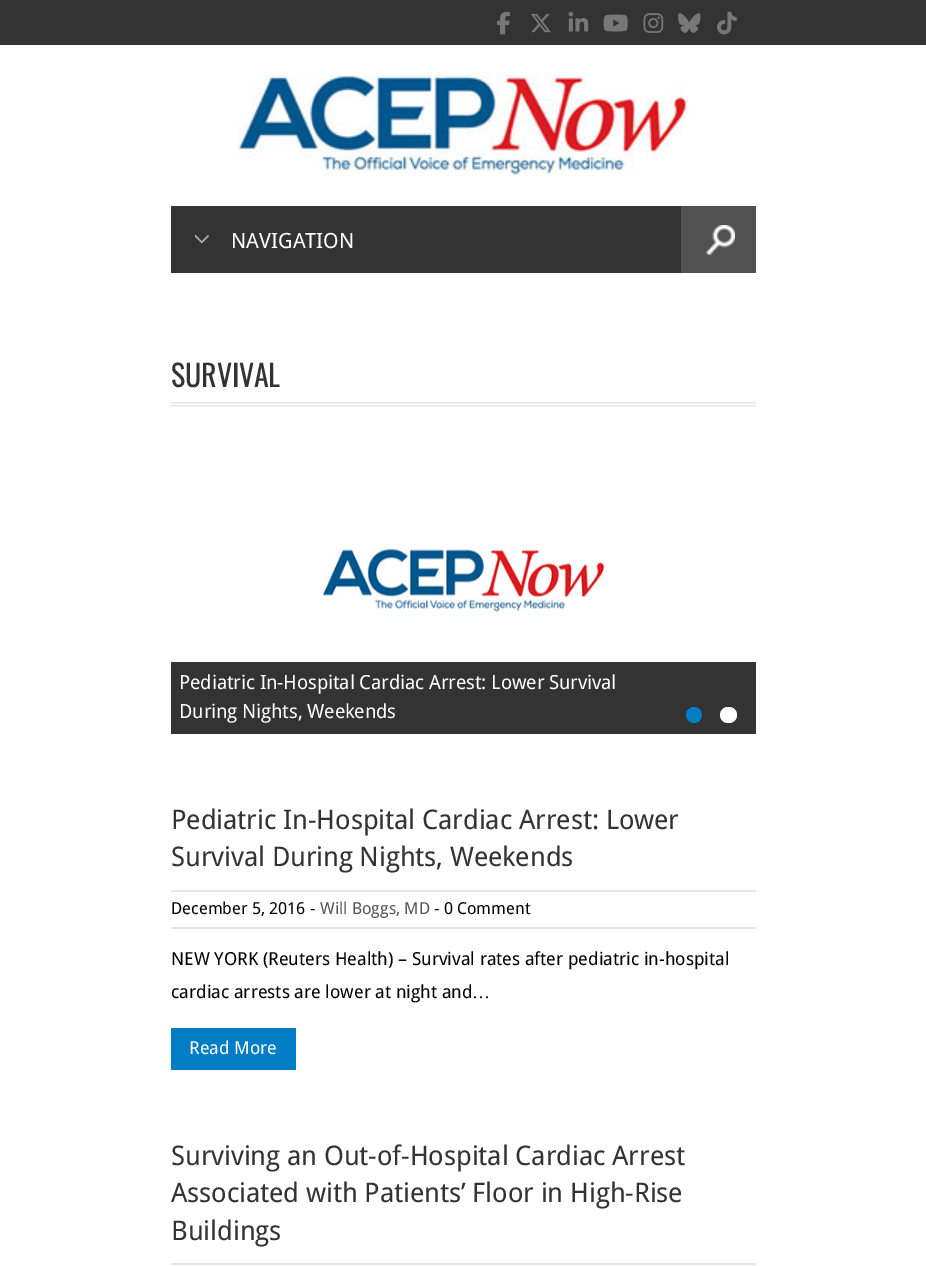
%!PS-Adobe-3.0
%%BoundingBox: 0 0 926 1266
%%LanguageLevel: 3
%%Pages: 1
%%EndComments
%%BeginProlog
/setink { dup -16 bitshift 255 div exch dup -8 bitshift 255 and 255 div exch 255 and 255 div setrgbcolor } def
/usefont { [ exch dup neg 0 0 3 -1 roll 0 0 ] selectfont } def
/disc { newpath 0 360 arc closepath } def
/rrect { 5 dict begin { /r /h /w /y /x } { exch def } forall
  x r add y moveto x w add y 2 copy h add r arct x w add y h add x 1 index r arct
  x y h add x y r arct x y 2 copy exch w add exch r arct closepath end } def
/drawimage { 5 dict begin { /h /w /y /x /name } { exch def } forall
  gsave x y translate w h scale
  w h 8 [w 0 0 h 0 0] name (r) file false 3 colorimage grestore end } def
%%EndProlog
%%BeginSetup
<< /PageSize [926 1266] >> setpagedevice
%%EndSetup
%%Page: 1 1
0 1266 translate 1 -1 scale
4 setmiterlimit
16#FFFFFF setink
0 0 926 1266 rectfill
16#333333 setink
0 0 926 45 rectfill
(img1.raw) 497 11 13 24 drawimage
(img2.raw) 531 13 20 20 drawimage
(img3.raw) 568 11 21 21 drawimage
(img4.raw) 603 14 25 18 drawimage
(img5.raw) 643 13 21 20 drawimage
(img6.raw) 678 13 23 20 drawimage
(img7.raw) 717 11 20 24 drawimage
(img8.raw) 238 75 451 101 drawimage
171 206 510 67 rectfill
(img9.raw) 195 235 14 8 drawimage
/DroidSans-Regular 21 usefont
16#FFFFFF setink
231 248 moveto (NAVIGATION) show
16#515151 setink
681 206 75 67 rectfill
(img10.raw) 706 225 29 30 drawimage
(img11.raw) 171 402 585 5 drawimage
/Oswald-Regular 30 usefont
16#333333 setink
171 387 moveto -0.15 0 (SURVIVAL) ashow
(img12.raw) 322 548 283 64 drawimage
171 662 585 72 rectfill
/DroidSans-Regular 19.5 usefont
16#FFFFFF setink
179 689 moveto -0.15 0 (Pediatric In-Hospital Cardiac Arrest: Lower Survival) ashow
179 718 moveto -0.15 0 (During Nights, Weekends) ashow
16#007DC5 setink
694 715 8 disc fill
16#FFFFFF setink
720 707 17 16 8 rrect fill
/DroidSans-Regular 27 usefont
16#333333 setink
171 829 moveto -0.15 0 (Pediatric In-Hospital Cardiac Arrest: Lower) ashow
171 866 moveto -0.15 0 (Survival During Nights, Weekends) ashow
16#E5E5E5 setink
171 890 585 2 rectfill
171 927 585 2 rectfill
/DroidSans-Regular 16.5 usefont
16#000000 setink
171 914 moveto (December 5, 2016 -) show
16#555555 setink
320 914 moveto (Will Boggs, MD) show
16#000000 setink
434 914 moveto (- 0 Comment) show
/DroidSans-Regular 18 usefont
171 965 moveto (NEW YORK \(Reuters Health\) – Survival rates after pediatric in-hospital) show
171 998 moveto (cardiac arrests are lower at night and) show
/LiberationSerif-Regular 18 usefont
472 998 moveto (…) show
16#007DC5 setink
171 1028 125 42 rectfill
/DroidSans-Regular 18 usefont
16#FFFFFF setink
189 1054 moveto (Read More) show
/DroidSans-Regular 27 usefont
16#333333 setink
171 1165 moveto -0.15 0 (Surviving an Out-of-Hospital Cardiac Arrest) ashow
171 1202 moveto -0.15 0 (Associated with Patients’ Floor in High-Rise) ashow
171 1240 moveto -0.15 0 (Buildings) ashow
16#E5E5E5 setink
171 1263 585 2 rectfill
showpage
%%EOF
